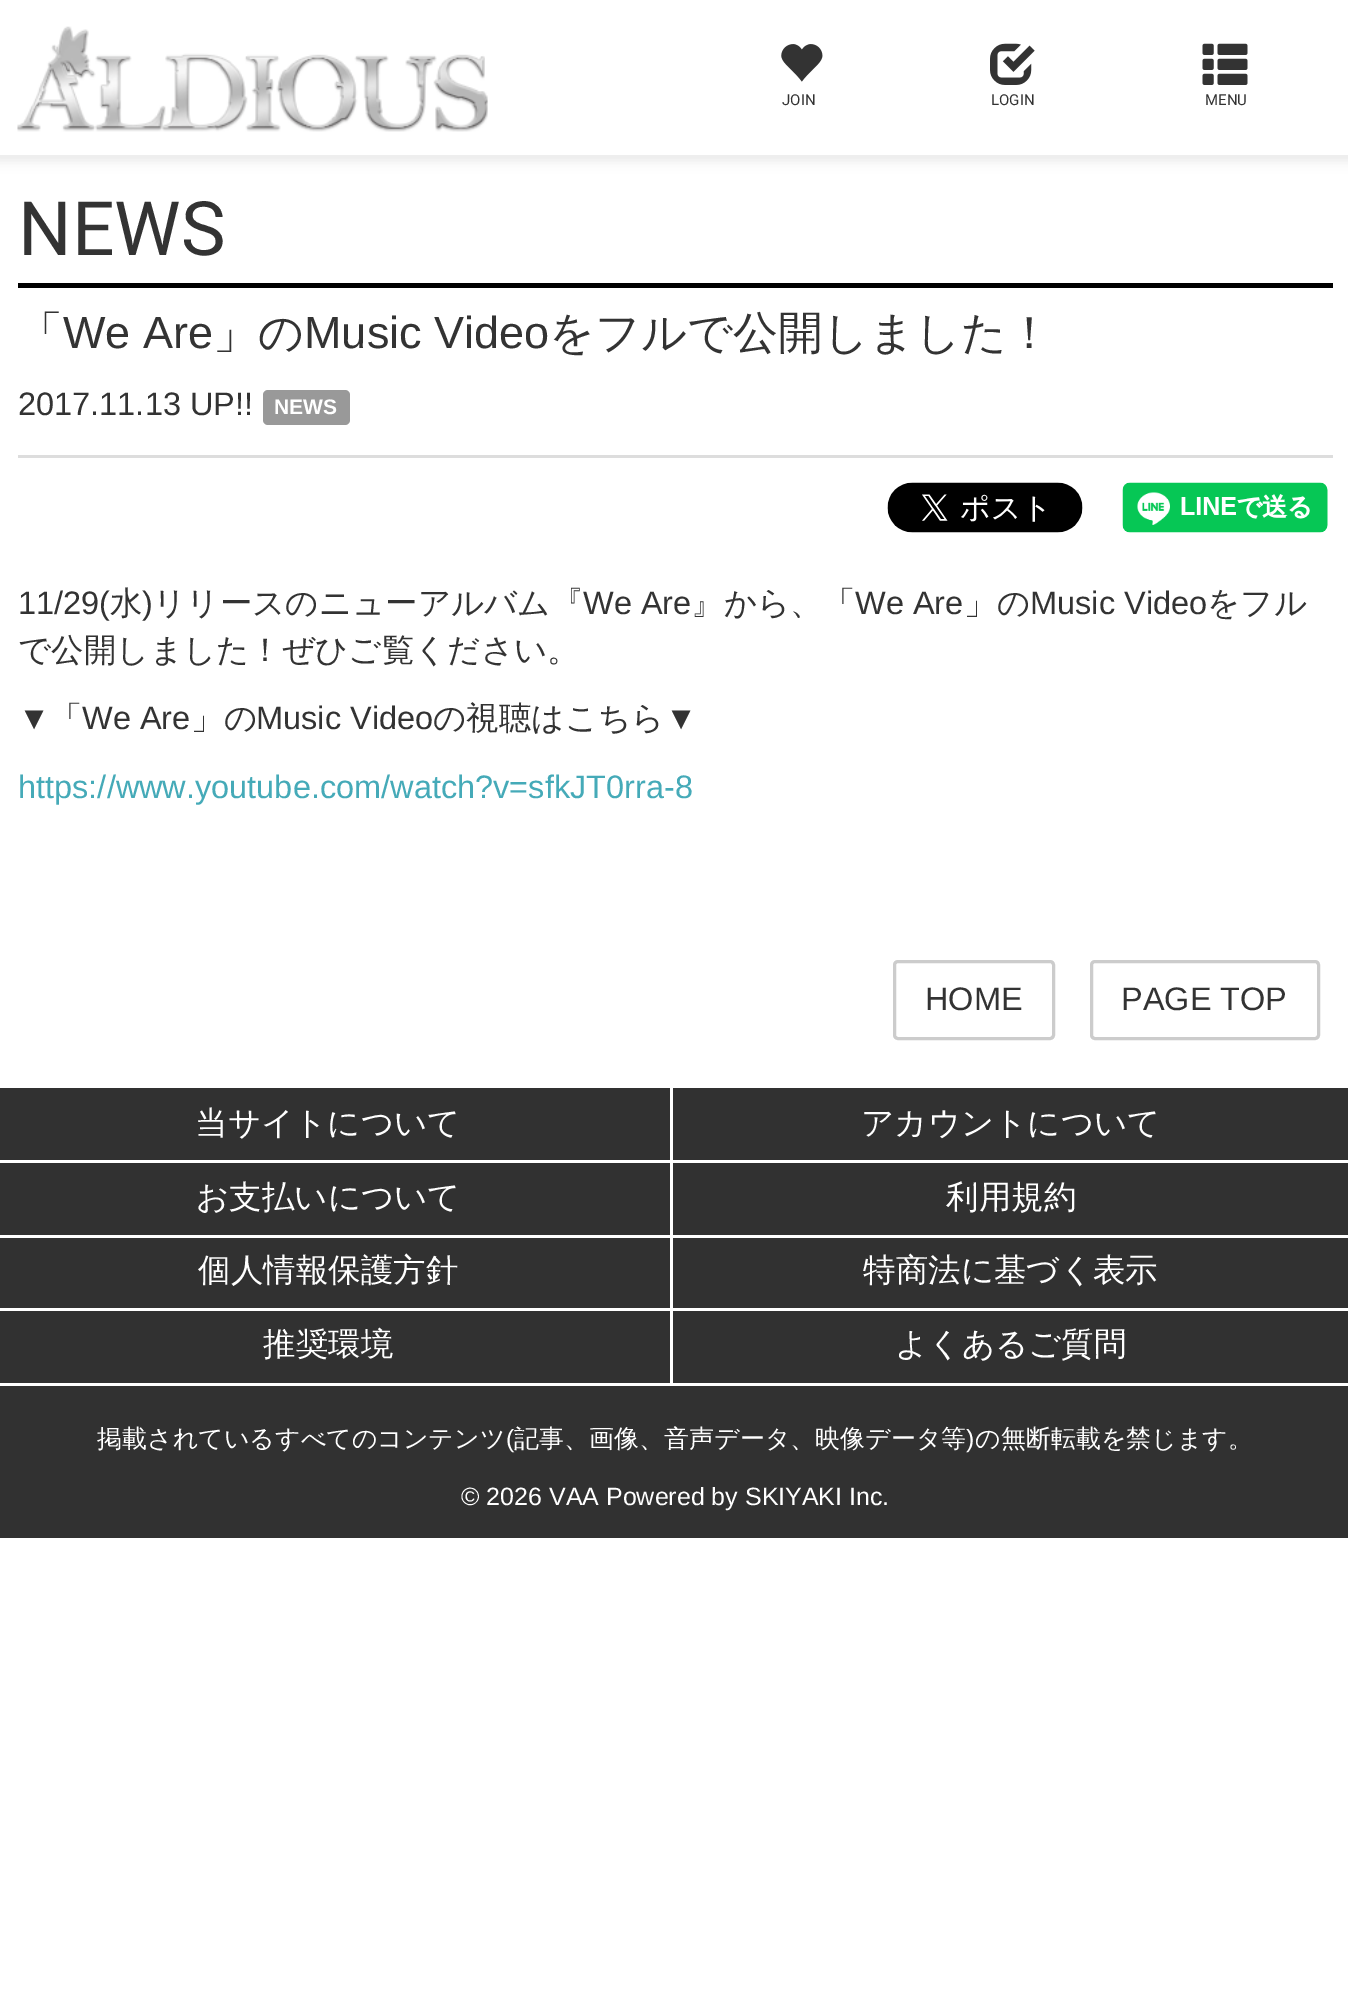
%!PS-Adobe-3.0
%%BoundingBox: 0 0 1348 1998
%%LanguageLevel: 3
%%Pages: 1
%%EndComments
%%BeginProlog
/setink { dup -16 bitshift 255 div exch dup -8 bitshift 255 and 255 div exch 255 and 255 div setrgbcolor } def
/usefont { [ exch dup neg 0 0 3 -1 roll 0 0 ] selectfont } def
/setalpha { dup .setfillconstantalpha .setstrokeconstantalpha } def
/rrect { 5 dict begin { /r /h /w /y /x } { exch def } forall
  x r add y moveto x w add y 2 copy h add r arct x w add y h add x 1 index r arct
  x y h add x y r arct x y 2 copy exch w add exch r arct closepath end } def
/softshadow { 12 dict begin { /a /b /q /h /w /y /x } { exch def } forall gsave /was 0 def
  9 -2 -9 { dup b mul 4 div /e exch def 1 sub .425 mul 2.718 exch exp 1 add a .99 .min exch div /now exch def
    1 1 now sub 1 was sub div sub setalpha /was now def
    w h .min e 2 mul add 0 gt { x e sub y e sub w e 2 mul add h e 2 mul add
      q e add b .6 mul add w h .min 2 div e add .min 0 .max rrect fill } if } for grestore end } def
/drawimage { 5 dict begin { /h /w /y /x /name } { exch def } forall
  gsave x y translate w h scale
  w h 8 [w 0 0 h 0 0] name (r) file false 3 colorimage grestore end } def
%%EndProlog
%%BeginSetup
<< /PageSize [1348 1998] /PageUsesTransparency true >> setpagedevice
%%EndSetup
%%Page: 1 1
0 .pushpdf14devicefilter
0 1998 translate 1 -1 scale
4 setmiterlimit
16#FFFFFF setink
0 0 1348 1998 rectfill
16#000000 setink
-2 -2 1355 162 0 6 0.1 softshadow
16#FFFFFF setink
0 0 1348 155 rectfill
16#EEEEEE setink
0 155 1348 3 rectfill
(img1.raw) 17 26 471 106 drawimage
(img2.raw) 781 44 42 38 drawimage
/Roboto-Regular 15 usefont
16#333333 setink
782 105 moveto (JOIN) show
(img3.raw) 990 43 45 42 drawimage
991 105 moveto (LOGIN) show
(img4.raw) 1202 43 46 42 drawimage
1205 105 moveto (MENU) show
16#000000 setink
18 283 1315 5 rectfill
/Roboto-Regular 75 usefont
16#333333 setink
18 255 moveto (NEWS) show
/WenQuanYiZenHei-Medium 45 usefont
18 348 moveto (「) show
/LiberationSans-Regular 45 usefont
63 348 moveto (We Are) show
/WenQuanYiZenHei-Medium 45 usefont
213 348 moveto (」の) show
/LiberationSans-Regular 45 usefont
304 348 moveto (Music Video) show
/WenQuanYiZenHei-Medium 45 usefont
549 348 moveto (をフルで公開しました！) show
/LiberationSans-Regular 32.5 usefont
18 415 moveto (2017.11.13 UP!!) show
16#999999 setink
263 390 87 35 5 rrect fill
/LiberationSans-Bold 21 usefont
16#FFFFFF setink
274 414 moveto (NEWS) show
16#DDDDDD setink
18 455 1315 3 rectfill
(img5.raw) 887 482 196 51 drawimage
(img6.raw) 1122 482 206 51 drawimage
/LiberationSans-Regular 32.5 usefont
16#333333 setink
18 614 moveto (11/29\() show
/WenQuanYiZenHei-Medium 32.5 usefont
110 614 moveto (水) show
/LiberationSans-Regular 32.5 usefont
142 614 moveto (\)) show
/WenQuanYiZenHei-Medium 32.5 usefont
153 614 moveto (リリースのニューアルバム『) show
/LiberationSans-Regular 32.5 usefont
583 614 moveto (We Are) show
/WenQuanYiZenHei-Medium 32.5 usefont
691 614 moveto (』から、「) show
/LiberationSans-Regular 32.5 usefont
855 614 moveto (We Are) show
/WenQuanYiZenHei-Medium 32.5 usefont
964 614 moveto (」の) show
/LiberationSans-Regular 32.5 usefont
1030 614 moveto (Music Video) show
/WenQuanYiZenHei-Medium 32.5 usefont
1207 614 moveto (をフル) show
18 661 moveto (で公開しました！ぜひご覧ください。) show
/LiberationSans-Regular 32.5 usefont
18 729 moveto (▼) show
/WenQuanYiZenHei-Medium 32.5 usefont
50 729 moveto (「) show
/LiberationSans-Regular 32.5 usefont
82 729 moveto (We Are) show
/WenQuanYiZenHei-Medium 32.5 usefont
191 729 moveto (」の) show
/LiberationSans-Regular 32.5 usefont
256 729 moveto (Music Video) show
/WenQuanYiZenHei-Medium 32.5 usefont
433 729 moveto (の視聴はこちら) show
/LiberationSans-Regular 32.5 usefont
665 729 moveto (▼) show
16#45AAB8 setink
18 798 moveto (https://www.youtube.com/watch?v=sfkJT0rra-8) show
16#CCCCCC setink
3 setlinewidth
894.5 961.5 159 77 3.5 rrect stroke
16#333333 setink
925 1010 moveto (HOME) show
16#CCCCCC setink
1091.5 961.5 227 77 3.5 rrect stroke
16#333333 setink
1121 1010 moveto (PAGE TOP) show
16#313131 setink
0 1088 1348 450 rectfill
16#FFFFFF setink
0 1160 1348 3 rectfill
/WenQuanYiZenHei-Medium 32.5 usefont
195 1134 moveto (当サイトについて) show
670 1088 3 75 rectfill
861 1134 moveto (アカウントについて) show
0 1235 1348 3 rectfill
196 1208 moveto (お支払いについて) show
670 1163 3 75 rectfill
946 1208 moveto (利用規約) show
0 1308 1348 3 rectfill
198 1281 moveto (個人情報保護方針) show
670 1238 3 72 rectfill
863 1281 moveto (特商法に基づく表示) show
0 1383 1348 3 rectfill
263 1355 moveto (推奨環境) show
670 1310 3 75 rectfill
895 1355 moveto (よくあるご質問) show
/WenQuanYiZenHei-Medium 25 usefont
97 1447 moveto (掲載されているすべてのコンテンツ) show
/LiberationSans-Regular 25 usefont
506 1447 moveto (\() show
/WenQuanYiZenHei-Medium 25 usefont
514 1447 moveto (記事、画像、音声データ、映像データ等) show
/LiberationSans-Regular 25 usefont
966 1447 moveto (\)) show
/WenQuanYiZenHei-Medium 25 usefont
975 1447 moveto (の無断転載を禁じます。) show
/LiberationSans-Regular 25 usefont
461 1505 moveto (© 2026 VAA Powered by SKIYAKI Inc.) show
.poppdf14devicefilter showpage
%%EOF
